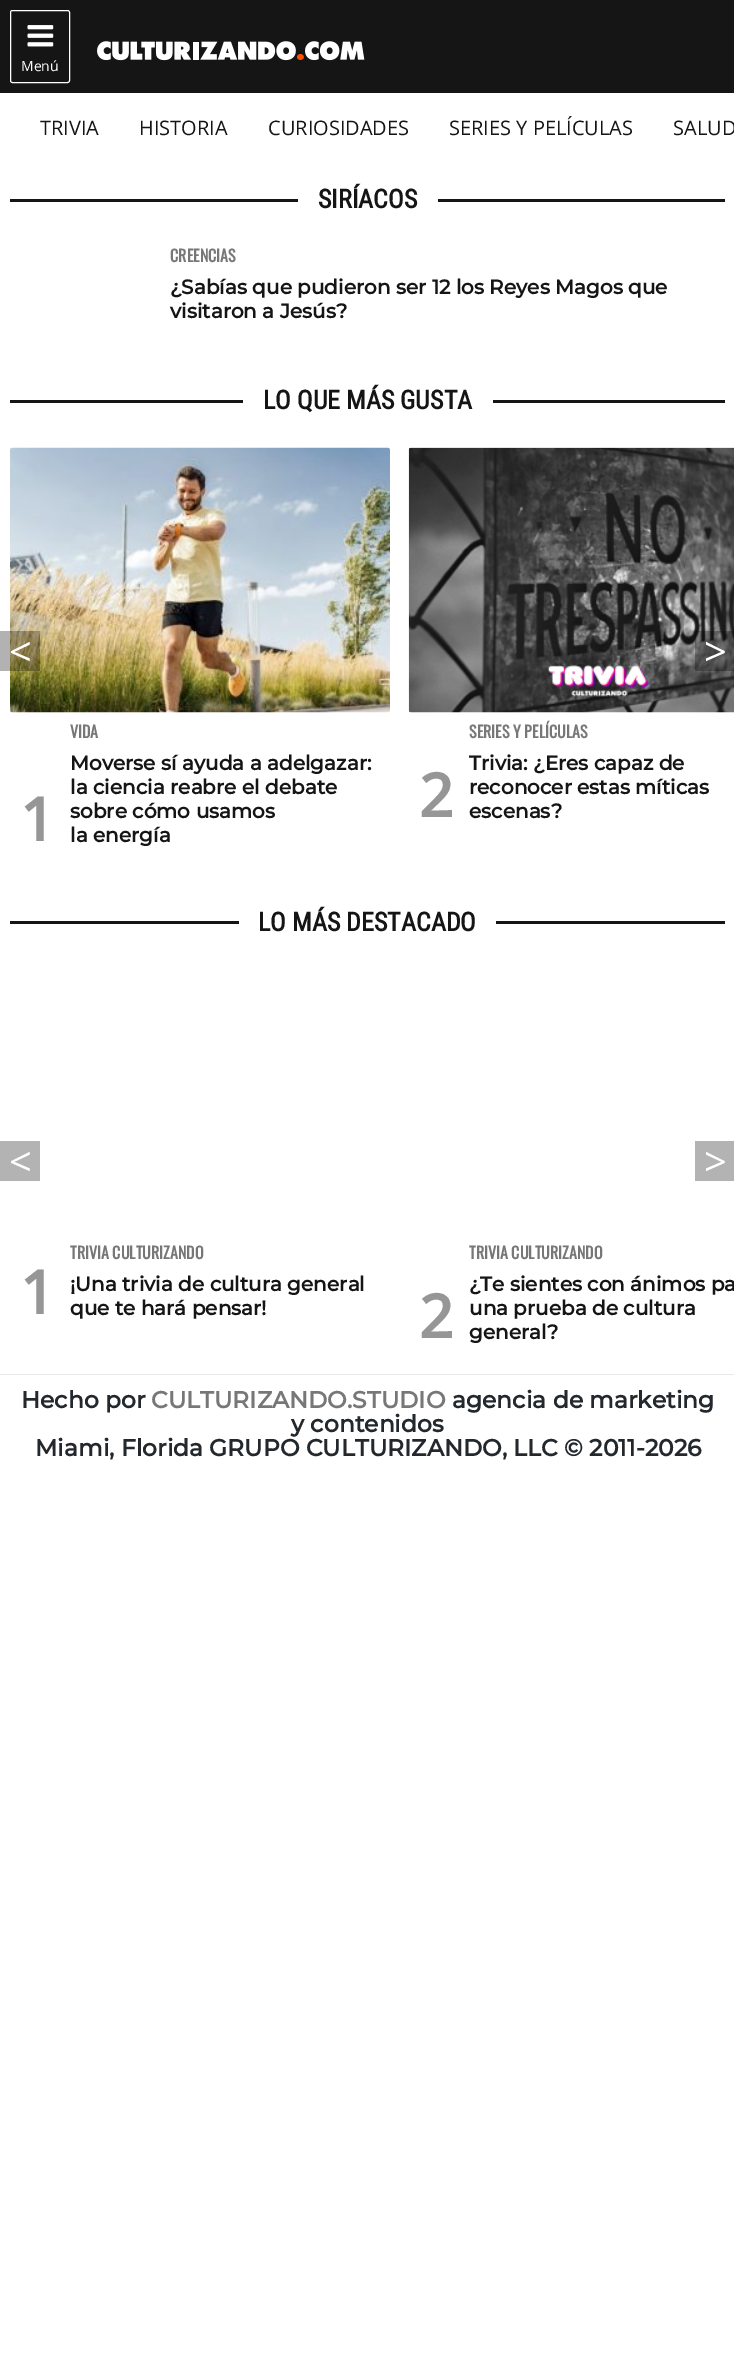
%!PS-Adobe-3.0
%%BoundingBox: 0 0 734 2362
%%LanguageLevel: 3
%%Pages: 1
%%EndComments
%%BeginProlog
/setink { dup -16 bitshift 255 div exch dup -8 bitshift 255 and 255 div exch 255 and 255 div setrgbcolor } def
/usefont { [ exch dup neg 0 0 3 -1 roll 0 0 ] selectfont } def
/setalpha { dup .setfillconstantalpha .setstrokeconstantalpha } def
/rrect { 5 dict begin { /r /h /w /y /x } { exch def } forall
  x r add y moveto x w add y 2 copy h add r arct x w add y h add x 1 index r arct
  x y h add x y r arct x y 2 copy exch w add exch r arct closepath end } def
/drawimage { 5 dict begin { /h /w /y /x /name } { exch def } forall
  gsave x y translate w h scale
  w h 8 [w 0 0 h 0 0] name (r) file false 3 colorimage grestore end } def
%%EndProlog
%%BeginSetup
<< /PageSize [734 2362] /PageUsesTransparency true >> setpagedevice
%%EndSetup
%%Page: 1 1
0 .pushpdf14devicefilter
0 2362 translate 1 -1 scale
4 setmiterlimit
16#FFFFFF setink
0 0 734 2362 rectfill
16#151515 setink
0 0 734 93 rectfill
(img1.raw) 97 41 268 20 drawimage
16#FFFFFF setink
10.5 10.5 59 72 2 rrect stroke
(img2.raw) 27 25 27 22 drawimage
/OpenSans-Regular 14 usefont
21 71 moveto (Menú) show
/OpenSans-Regular 20 usefont
16#151515 setink
[
    [(TRIVIA) 40 135]
    [(HISTORIA) 139 135]
    [(CURIOSIDADES) 268 135]
    [(SERIES Y PELÍCULAS) 449 135]
    [(SALUD) 673 135]
] { aload pop moveto show } forall
10 199 715 3 rectfill
16#FFFFFF setink
298 199 140 3 rectfill
/RobotoCondensed-Bold 26 usefont
16#151515 setink
318 208 moveto (SIRÍACOS) show
/Oswald-Bold 16 usefont
16#777777 setink
170 262 moveto (CREENCIAS) show
/Montserrat-Bold 20 usefont
16#151515 setink
170 294 moveto (¿Sabías que pudieron ser 12 los Reyes Magos que) show
170 318 moveto (visitaron a Jesús?) show
10 400 715 3 rectfill
16#FFFFFF setink
243 400 250 3 rectfill
/RobotoCondensed-Bold 26 usefont
16#151515 setink
263 409 moveto (LO QUE MÁS GUSTA) show
(img3.raw) 10 447 380 266 drawimage
0.3 setalpha
16#000000 setink
0 631 40 40 rectfill
/OpenSans-Regular 40 usefont
1 setalpha
16#FFFFFF setink
9 666 moveto (<) show
(img4.raw) 408 447 326 266 drawimage
0.3 setalpha
16#000000 setink
695 631 39 40 rectfill
1 setalpha
16#FFFFFF setink
704 666 moveto (>) show
/OpenSans-Bold 60 usefont
16#969696 setink
20 841 moveto (1) show
/Oswald-Bold 16 usefont
16#777777 setink
70 738 moveto (VIDA) show
/Montserrat-Bold 20 usefont
16#151515 setink
[
    [(Moverse sí ayuda a adelgazar:) 70 770]
    [(la ciencia reabre el debate) 70 794]
    [(sobre cómo usamos) 70 818]
    [(la energía) 70 842]
] { aload pop moveto show } forall
/OpenSans-Bold 60 usefont
16#969696 setink
419 817 moveto (2) show
/Oswald-Bold 16 usefont
16#777777 setink
469 738 moveto (SERIES Y PELÍCULAS) show
/Montserrat-Bold 20 usefont
16#151515 setink
[
    [(Trivia: ¿Eres capaz de) 469 770]
    [(reconocer estas míticas) 469 794]
    [(escenas?) 469 818]
] { aload pop moveto show } forall
10 921 715 3 rectfill
16#FFFFFF setink
239 921 257 3 rectfill
/RobotoCondensed-Bold 26 usefont
16#151515 setink
258 931 moveto (LO MÁS DESTACADO) show
16#B3B3B3 setink
0 1141 40 40 rectfill
/OpenSans-Regular 40 usefont
16#FFFFFF setink
9 1176 moveto (<) show
16#B3B3B3 setink
695 1141 39 40 rectfill
16#FFFFFF setink
704 1176 moveto (>) show
/OpenSans-Bold 60 usefont
16#969696 setink
20 1314 moveto (1) show
/Oswald-Bold 16 usefont
16#777777 setink
70 1259 moveto (TRIVIA CULTURIZANDO) show
/Montserrat-Bold 20 usefont
16#151515 setink
70 1291 moveto (¡Una trivia de cultura general) show
70 1315 moveto (que te hará pensar!) show
/OpenSans-Bold 60 usefont
16#969696 setink
419 1338 moveto (2) show
/Oswald-Bold 16 usefont
16#777777 setink
469 1259 moveto (TRIVIA CULTURIZANDO) show
/Montserrat-Bold 20 usefont
16#151515 setink
[
    [(¿Te sientes con ánimos pa) 469 1291]
    [(una prueba de cultura) 469 1315]
    [(general?) 469 1339]
] { aload pop moveto show } forall
16#EAEAEA setink
0 1374 734 1 rectfill
/Montserrat-Bold 23.4 usefont
16#23282D setink
21 1408 moveto (Hecho por) show
16#777777 setink
151 1408 moveto (CULTURIZANDO.STUDIO) show
16#23282D setink
[
    [(agencia de marketing) 452 1408]
    [(y contenidos) 291 1432]
    [(Miami, Florida GRUPO CULTURIZANDO, LLC © 2011-2026) 35 1456]
] { aload pop moveto show } forall
.poppdf14devicefilter showpage
%%EOF
